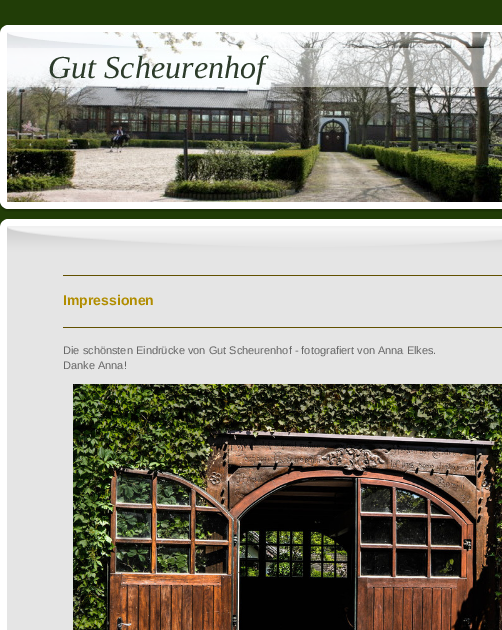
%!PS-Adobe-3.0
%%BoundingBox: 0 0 502 630
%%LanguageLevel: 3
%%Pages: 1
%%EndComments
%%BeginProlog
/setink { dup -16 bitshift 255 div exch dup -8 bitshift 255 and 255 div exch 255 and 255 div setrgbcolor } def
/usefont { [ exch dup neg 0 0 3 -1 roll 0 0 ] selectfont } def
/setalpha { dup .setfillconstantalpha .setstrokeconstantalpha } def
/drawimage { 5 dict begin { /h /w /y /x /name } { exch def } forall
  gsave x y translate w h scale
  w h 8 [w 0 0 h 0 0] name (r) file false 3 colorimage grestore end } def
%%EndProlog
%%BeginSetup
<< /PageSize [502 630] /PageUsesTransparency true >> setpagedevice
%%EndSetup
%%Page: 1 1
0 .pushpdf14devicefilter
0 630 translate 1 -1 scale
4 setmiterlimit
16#213D07 setink
0 0 502 630 rectfill
(img2.raw) 7 32 495 170 drawimage
(img1.raw) 0 25 502 35 drawimage
16#FFFFFF setink
0 60 7 142 rectfill
0.5 setalpha
7 48 495 39 rectfill
/LiberationSerif-Italic 32 usefont
1 setalpha
16#2C3B2A setink
48 78 moveto 0.1 0 (Gut Scheurenhof) ashow
(img3.raw) 0 202 502 10 drawimage
(img4.raw) 0 219 502 35 drawimage
(img5.raw) 0 254 502 376 drawimage
16#625000 setink
63 275 439 1 rectfill
/LiberationSans-Bold 14 usefont
16#B18D00 setink
63 305 moveto (Impressionen) show
16#625000 setink
63 327 439 1 rectfill
/LiberationSans-Regular 11 usefont
16#666666 setink
63 354 moveto (Die schönsten Eindrücke von Gut Scheurenhof - fotografiert von Anna Elkes.) show
63 369 moveto (Danke Anna!) show
(img6.raw) 73 384 429 246 drawimage
.poppdf14devicefilter showpage
%%EOF
